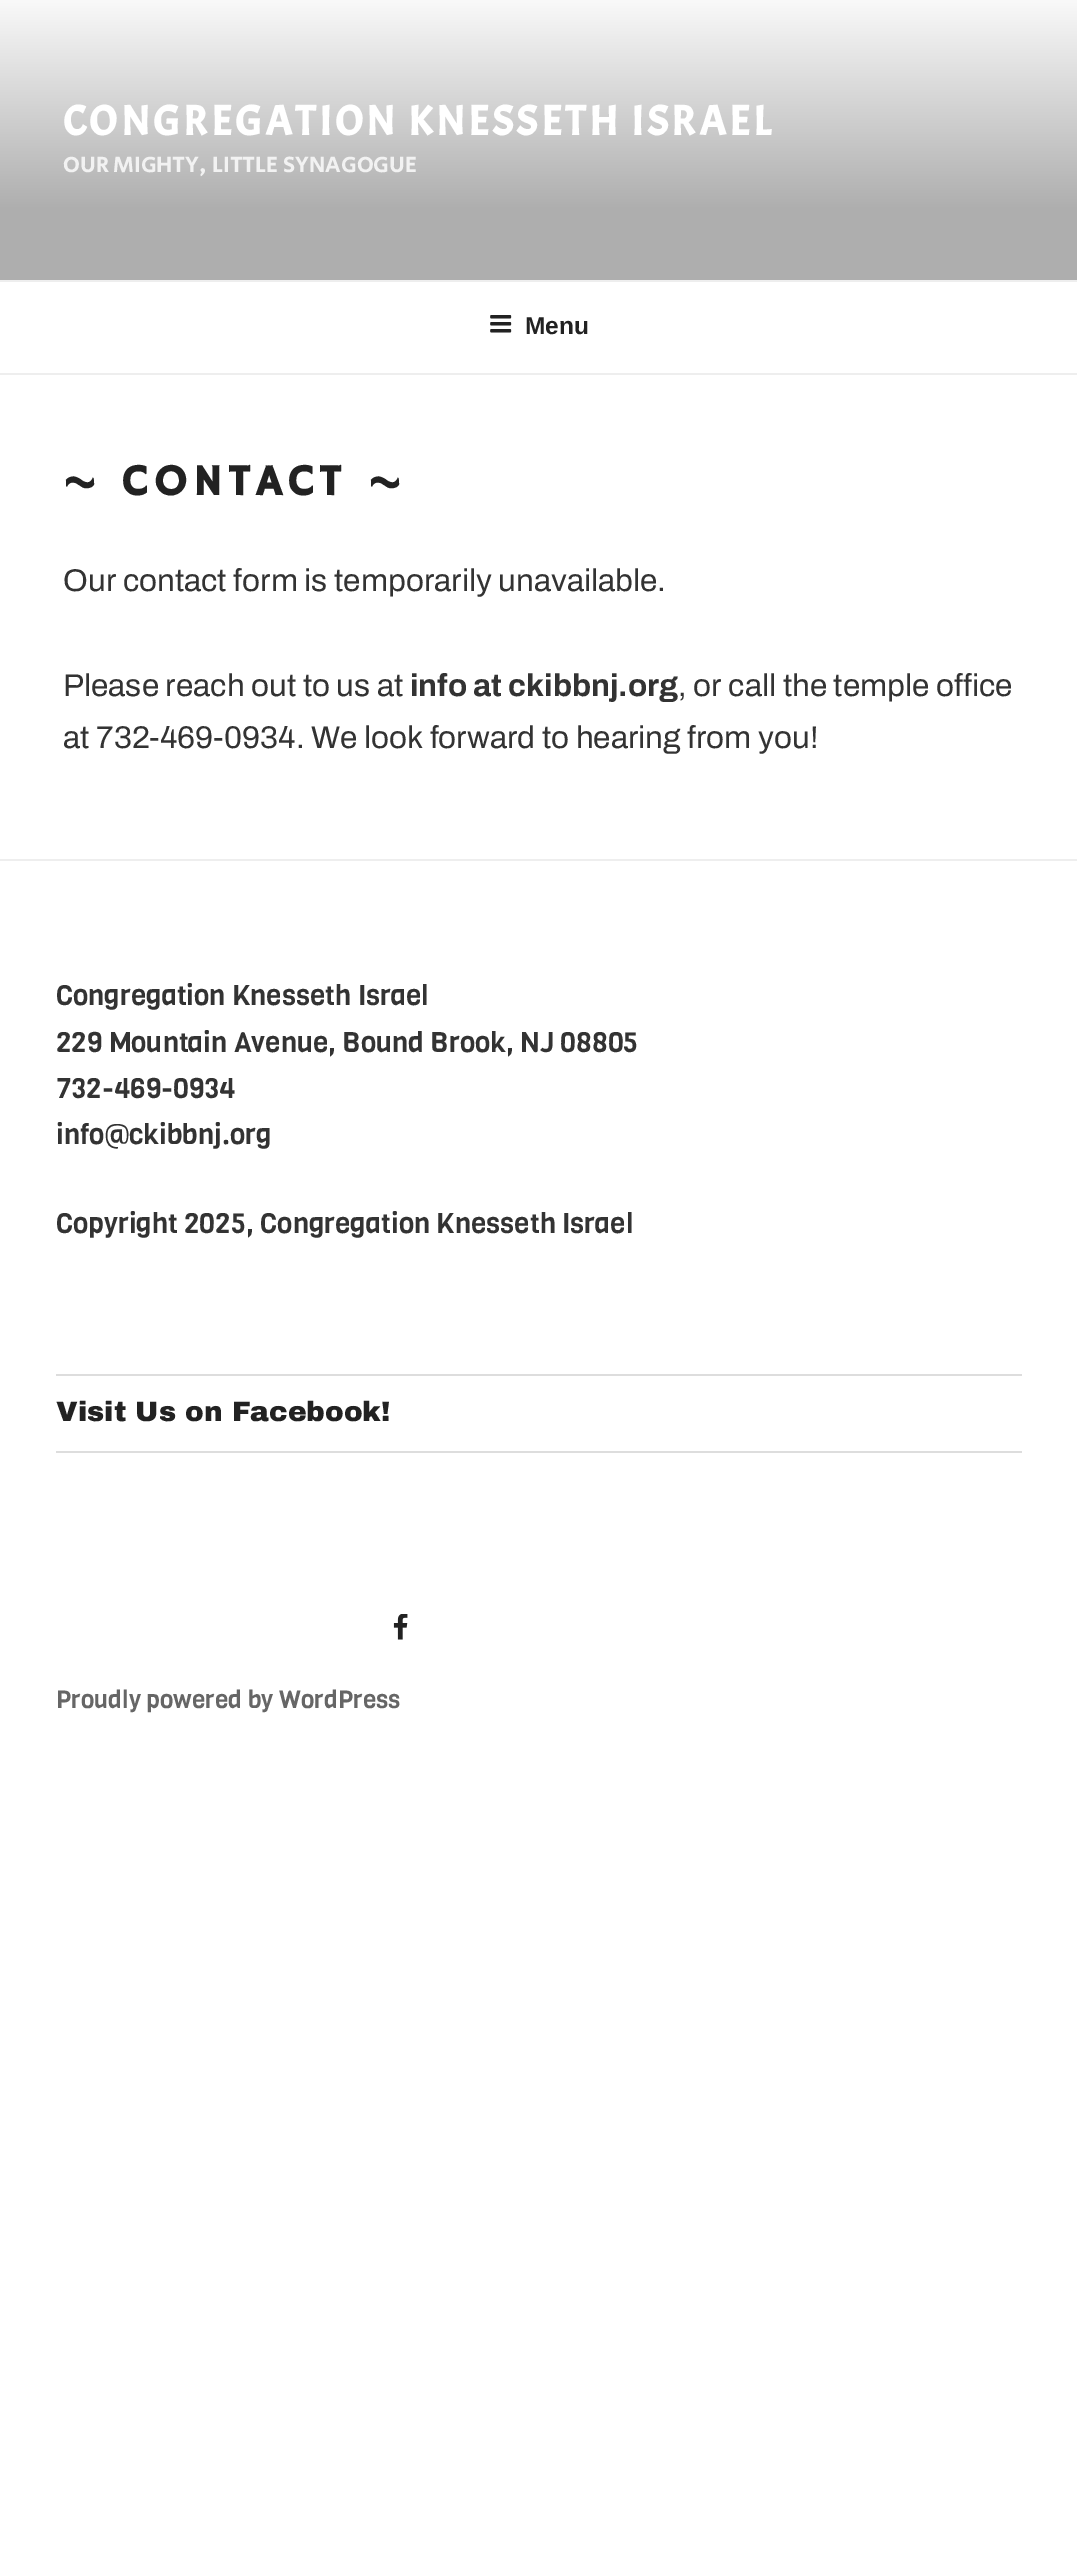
%!PS-Adobe-3.0
%%BoundingBox: 0 0 1077 2571
%%LanguageLevel: 3
%%Pages: 1
%%EndComments
%%BeginProlog
/setink { dup -16 bitshift 255 div exch dup -8 bitshift 255 and 255 div exch 255 and 255 div setrgbcolor } def
/usefont { [ exch dup neg 0 0 3 -1 roll 0 0 ] selectfont } def
/drawimage { 5 dict begin { /h /w /y /x /name } { exch def } forall
  gsave x y translate w h scale
  w h 8 [w 0 0 h 0 0] name (r) file false 3 colorimage grestore end } def
%%EndProlog
%%BeginSetup
<< /PageSize [1077 2571] >> setpagedevice
%%EndSetup
%%Page: 1 1
0 2571 translate 1 -1 scale
4 setmiterlimit
16#FFFFFF setink
0 0 1077 2571 rectfill
gsave 0 0 moveto 1077 0 lineto 1077 280 lineto 0 280 lineto closepath clip newpath
<< /ShadingType 2 /ColorSpace /DeviceRGB /Coords [539 0 539 280] /Extend [true true] /Function << /FunctionType 3 /Domain [0 1] /Functions [<< /FunctionType 2 /Domain [0 1] /C0 [0.976 0.976 0.976] /C1 [0.682 0.682 0.682] /N 1 >> << /FunctionType 2 /Domain [0 1] /C0 [0.682 0.682 0.682] /C1 [0.682 0.682 0.682] /N 1 >>] /Bounds [0.75] /Encode [0 1 0 1] >> >> shfill grestore
/Acme-Bold 42 usefont
63 135 moveto 3.35 0 (CONGREGATION KNESSETH ISRAEL) ashow
/SecularOne-Regular 22.75 usefont
16#F2F2F2 setink
63 172 moveto (OUR MIGHTY, LITTLE SYNAGOGUE) show
16#EEEEEE setink
0 280 1077 2 rectfill
0 373 1077 2 rectfill
(img1.raw) 490 315 22 18 drawimage
/LiberationSans-Bold 24.5 usefont
16#222222 setink
525 334 moveto (Menu) show
/HammersmithOne-Bold 43.75 usefont
63 495 moveto 6.1 0 (~ CONTACT ~) ashow
/Archivo-Regular 31.5 usefont
16#333333 setink
63 591 moveto (Our contact form is temporarily unavailable.) show
63 696 moveto (Please reach out to us at) show
/Archivo-Bold 31.5 usefont
410 696 moveto (info at ckibbnj.org) show
/Archivo-Regular 31.5 usefont
678 696 moveto (, or call the temple office) show
63 748 moveto (at 732-469-0934. We look forward to hearing from you!) show
16#EEEEEE setink
0 859 1077 2 rectfill
/Viga-Regular 28 usefont
16#333333 setink
[
    [(Congregation Knesseth Israel) 56 1005]
    [(229 Mountain Avenue, Bound Brook, NJ 08805) 56 1052]
    [(732-469-0934) 56 1098]
    [(info@ckibbnj.org) 56 1144]
    [(Copyright 2025, Congregation Knesseth Israel) 56 1233]
] { aload pop moveto show } forall
16#DDDDDD setink
56 1374 966 2 rectfill
56 1451 966 2 rectfill
/ArchivoBlack-Black 28 usefont
16#222222 setink
56 1421 moveto (Visit Us on Facebook!) show
(img2.raw) 393 1614 15 26 drawimage
/Viga-Regular 24.5 usefont
16#666666 setink
56 1708 moveto (Proudly powered by WordPress) show
showpage
%%EOF
